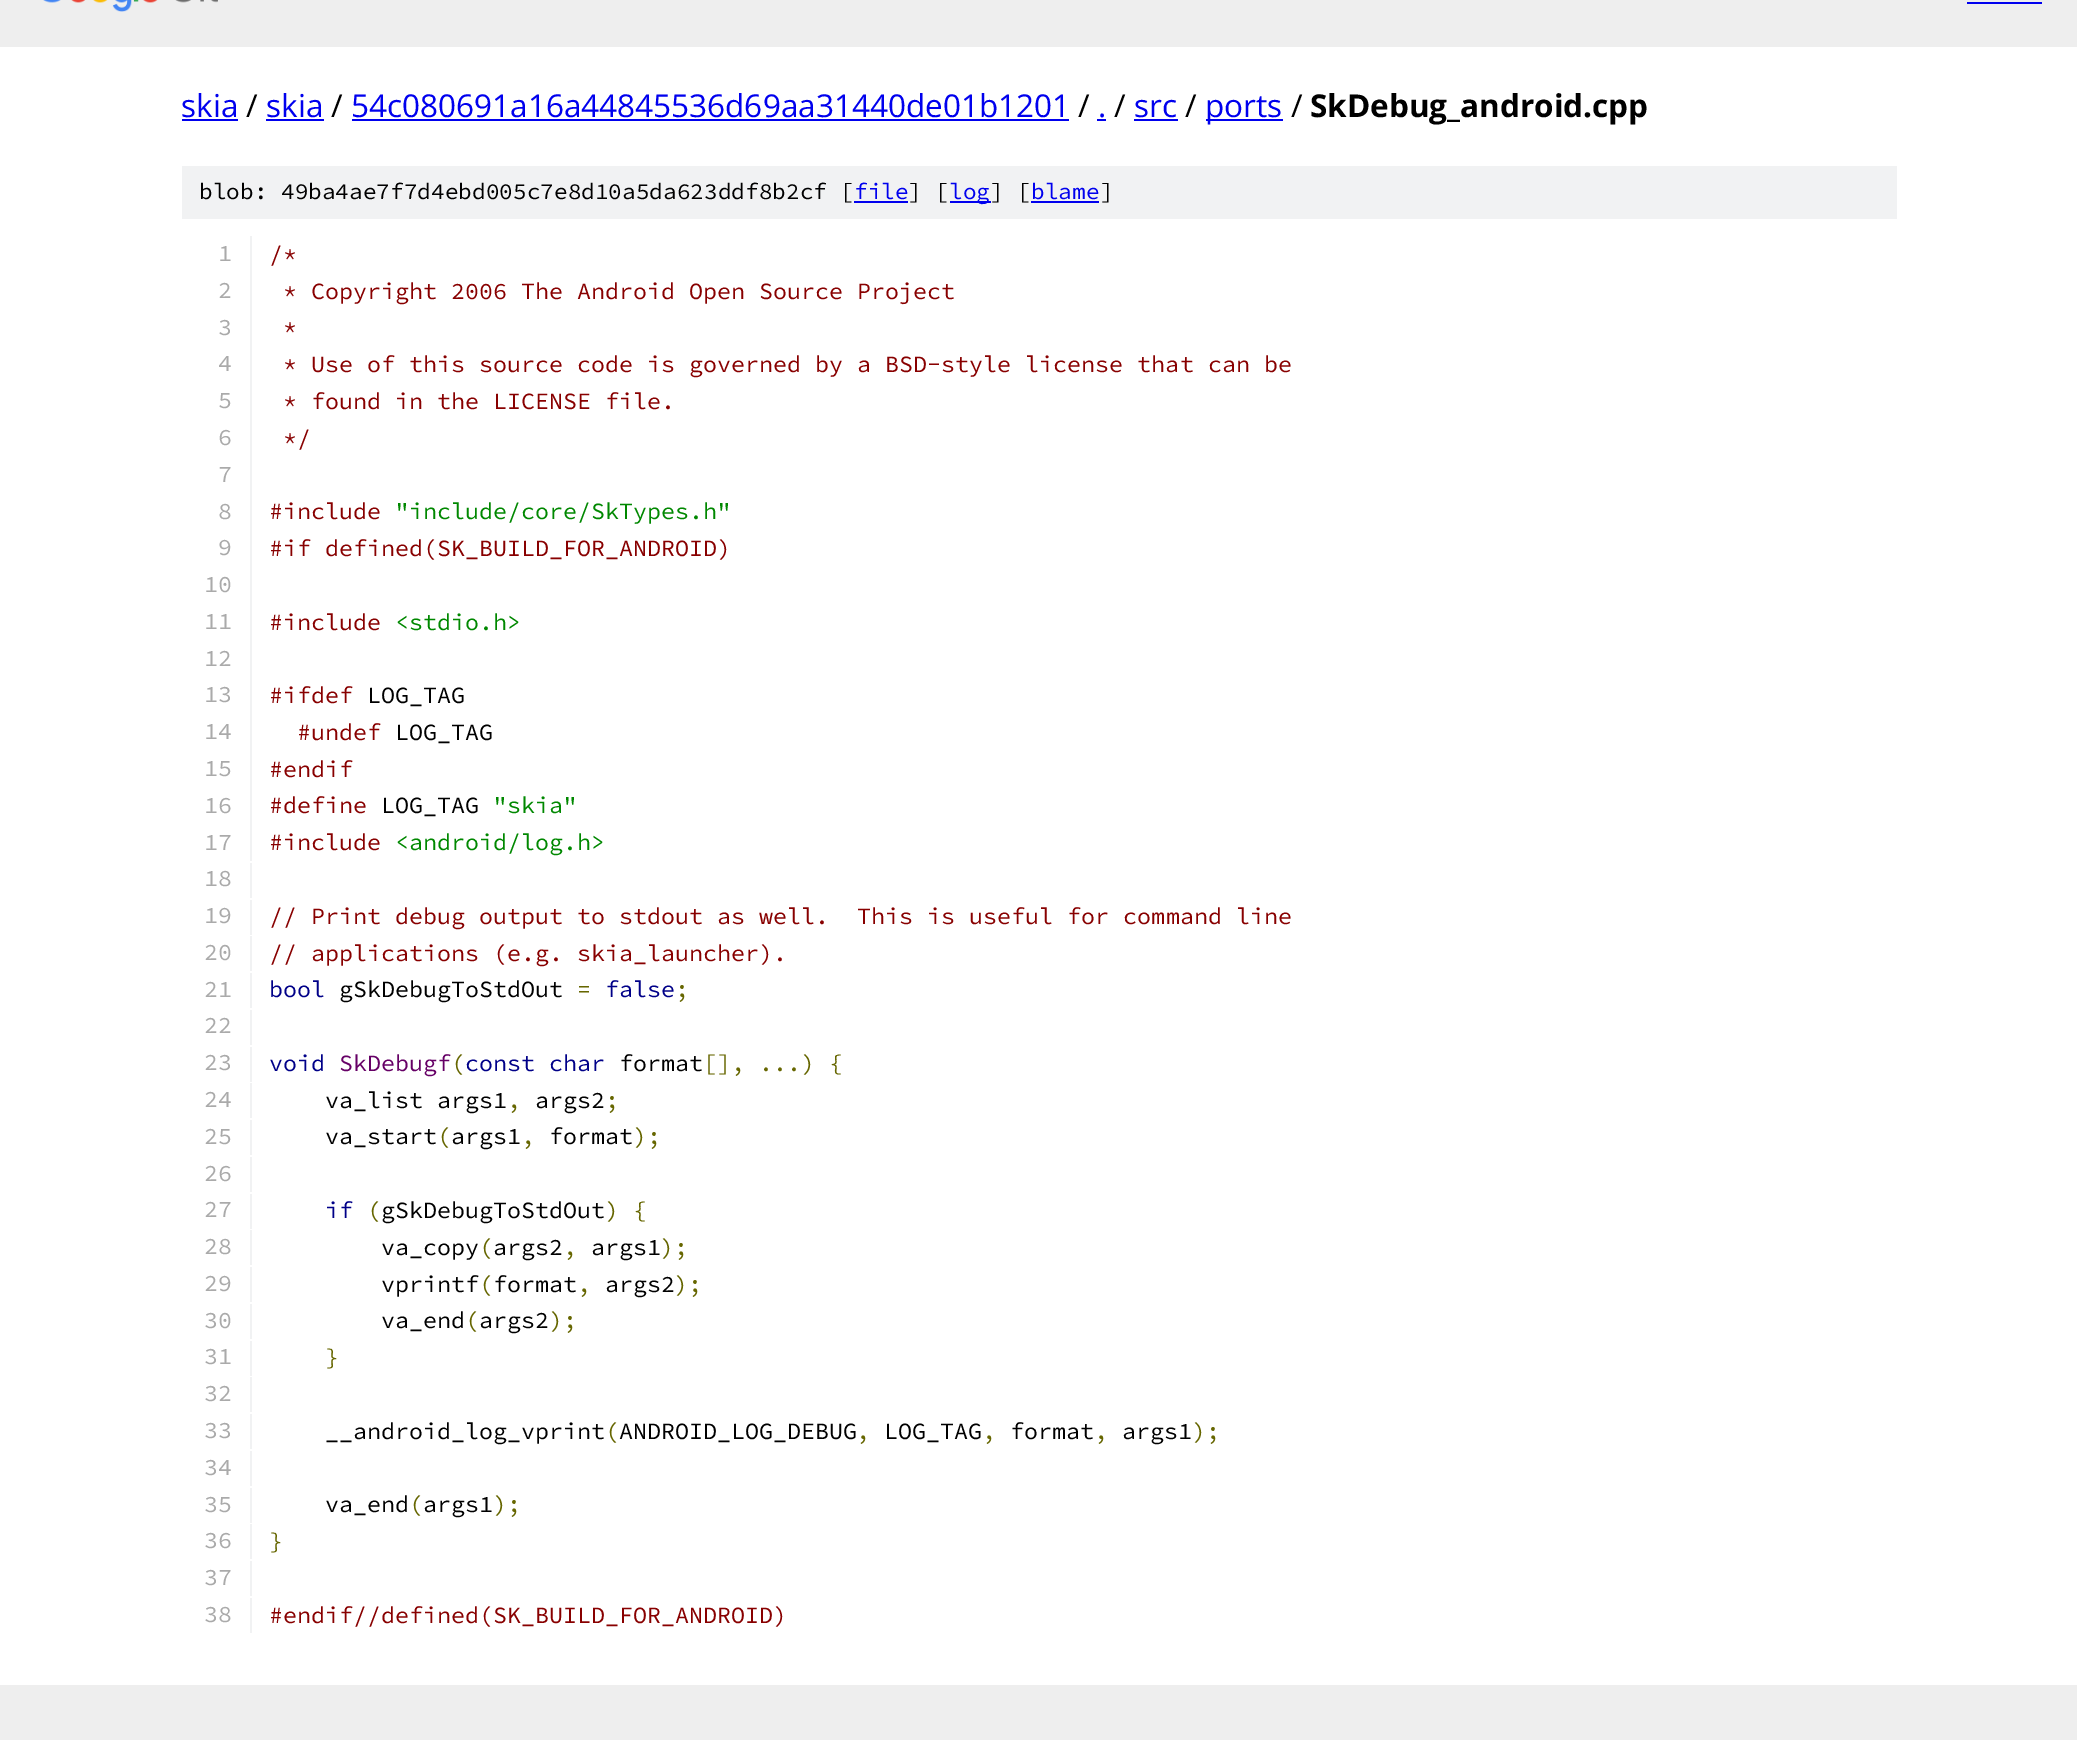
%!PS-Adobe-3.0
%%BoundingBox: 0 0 2077 1740
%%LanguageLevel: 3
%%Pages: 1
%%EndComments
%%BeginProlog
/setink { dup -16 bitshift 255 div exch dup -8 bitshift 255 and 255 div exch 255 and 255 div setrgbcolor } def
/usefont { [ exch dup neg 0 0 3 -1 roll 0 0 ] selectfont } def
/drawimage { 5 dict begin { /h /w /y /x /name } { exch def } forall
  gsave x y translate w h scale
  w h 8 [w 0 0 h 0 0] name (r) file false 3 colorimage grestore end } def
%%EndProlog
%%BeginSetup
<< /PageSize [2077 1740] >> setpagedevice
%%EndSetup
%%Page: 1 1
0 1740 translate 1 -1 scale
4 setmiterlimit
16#FFFFFF setink
0 0 2077 1740 rectfill
16#EEEEEE setink
0 0 2077 47 rectfill
(img1.raw) 43 0 175 12 drawimage
16#0000EE setink
1967 2 75 2 rectfill
/OpenSans-Regular 31.5 usefont
181 117 moveto (skia) show
182 119 56 2 rectfill
16#000000 setink
246 117 moveto (/) show
16#0000EE setink
266 117 moveto (skia) show
266 119 58 2 rectfill
16#000000 setink
331 117 moveto (/) show
16#0000EE setink
351 117 moveto (54c080691a16a44845536d69aa31440de01b1201) show
352 119 717 2 rectfill
16#000000 setink
1078 117 moveto (/) show
16#0000EE setink
1098 117 moveto (.) show
1097 119 9 2 rectfill
16#000000 setink
1114 117 moveto (/) show
16#0000EE setink
1134 117 moveto (src) show
1134 119 44 2 rectfill
16#000000 setink
1185 117 moveto (/) show
16#0000EE setink
1206 119 77 2 rectfill
1205 117 moveto (ports) show
16#000000 setink
1291 117 moveto (/) show
/OpenSans-Bold 31.5 usefont
1310 117 moveto (SkDebug_android.cpp) show
16#F1F2F3 setink
182 166 1715 53 rectfill
/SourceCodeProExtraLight-ExtraLight 22.75 usefont
16#000000 setink
199 199 moveto (blob: 49ba4ae7f7d4ebd005c7e8d10a5da623ddf8b2cf [) show
16#0000EE setink
854 199 moveto (file) show
854 201 54 2 rectfill
16#000000 setink
908 199 moveto (] [) show
16#0000EE setink
950 201 41 2 rectfill
949 199 moveto (log) show
16#000000 setink
990 199 moveto (] [) show
16#0000EE setink
1031 199 moveto (blame) show
1031 201 68 2 rectfill
16#000000 setink
1100 199 moveto (]) show
16#F1F2F3 setink
250 236 2 625 rectfill
/SourceCodeProExtraLight-ExtraLight 23.35 usefont
16#AAAAAA setink
218 261 moveto (1) show
16#880000 setink
269 262 moveto (/*) show
16#AAAAAA setink
218 298 moveto (2) show
16#880000 setink
283 299 moveto (* Copyright 2006 The Android Open Source Project) show
16#AAAAAA setink
218 335 moveto (3) show
16#880000 setink
283 335 moveto (*) show
16#AAAAAA setink
218 371 moveto (4) show
16#880000 setink
283 372 moveto (* Use of this source code is governed by a BSD-style license that can be) show
16#AAAAAA setink
218 408 moveto (5) show
16#880000 setink
283 409 moveto (* found in the LICENSE file.) show
16#AAAAAA setink
218 445 moveto (6) show
16#880000 setink
283 446 moveto (*/) show
16#AAAAAA setink
218 482 moveto (7) show
218 519 moveto (8) show
16#880000 setink
269 519 moveto (#include) show
16#008800 setink
395 519 moveto ("include/core/SkTypes.h") show
16#AAAAAA setink
218 555 moveto (9) show
16#880000 setink
269 556 moveto (#if defined\(SK_BUILD_FOR_ANDROID\)) show
16#AAAAAA setink
204 592 moveto (10) show
204 629 moveto (11) show
16#880000 setink
269 630 moveto (#include) show
16#008800 setink
395 630 moveto (<stdio.h>) show
16#AAAAAA setink
204 666 moveto (12) show
204 702 moveto (13) show
16#880000 setink
269 703 moveto (#ifdef) show
16#000000 setink
367 703 moveto (LOG_TAG) show
16#AAAAAA setink
204 739 moveto (14) show
16#880000 setink
297 740 moveto (#undef) show
16#000000 setink
395 740 moveto (LOG_TAG) show
16#AAAAAA setink
204 776 moveto (15) show
16#880000 setink
269 777 moveto (#endif) show
16#AAAAAA setink
204 813 moveto (16) show
16#880000 setink
269 813 moveto (#define) show
16#000000 setink
381 813 moveto (LOG_TAG) show
16#008800 setink
493 813 moveto ("skia") show
16#AAAAAA setink
204 850 moveto (17) show
16#880000 setink
269 850 moveto (#include) show
16#008800 setink
395 850 moveto (<android/log.h>) show
16#F1F2F3 setink
250 863 2 35 rectfill
16#AAAAAA setink
204 886 moveto (18) show
16#F1F2F3 setink
250 900 2 35 rectfill
16#AAAAAA setink
204 923 moveto (19) show
16#880000 setink
269 924 moveto (// Print debug output to stdout as well.  This is useful for command line) show
16#F1F2F3 setink
250 936 2 35 rectfill
16#AAAAAA setink
204 960 moveto (20) show
16#880000 setink
269 961 moveto (// applications \(e.g. skia_launcher\).) show
16#F1F2F3 setink
250 973 2 35 rectfill
16#AAAAAA setink
204 997 moveto (21) show
16#000088 setink
269 997 moveto (bool) show
16#000000 setink
339 997 moveto (gSkDebugToStdOut) show
16#666600 setink
577 997 moveto (=) show
16#000088 setink
605 997 moveto (false) show
16#666600 setink
675 997 moveto (;) show
16#F1F2F3 setink
250 1010 2 35 rectfill
16#AAAAAA setink
204 1033 moveto (22) show
16#F1F2F3 setink
250 1047 2 35 rectfill
16#AAAAAA setink
204 1070 moveto (23) show
16#000088 setink
269 1071 moveto (void) show
16#660066 setink
339 1071 moveto (SkDebugf) show
16#666600 setink
451 1071 moveto (\() show
16#000088 setink
465 1071 moveto (const char) show
16#000000 setink
619 1071 moveto (format) show
16#666600 setink
703 1071 moveto ([], ...\) {) show
16#F1F2F3 setink
250 1083 2 35 rectfill
16#AAAAAA setink
204 1107 moveto (24) show
16#000000 setink
325 1108 moveto (va_list args1) show
16#666600 setink
507 1108 moveto (,) show
16#000000 setink
535 1108 moveto (args2) show
16#666600 setink
605 1108 moveto (;) show
16#F1F2F3 setink
250 1120 2 35 rectfill
16#AAAAAA setink
204 1144 moveto (25) show
16#000000 setink
325 1144 moveto (va_start args1) show
16#666600 setink
437 1144 moveto (\() show
16#000000 setink
549 1144 moveto (format) show
16#666600 setink
633 1144 moveto (\);) show
521 1144 moveto (,) show
16#F1F2F3 setink
250 1157 2 35 rectfill
16#AAAAAA setink
204 1181 moveto (26) show
16#F1F2F3 setink
250 1194 2 35 rectfill
16#AAAAAA setink
204 1217 moveto (27) show
16#000088 setink
325 1218 moveto (if) show
16#666600 setink
367 1218 moveto (\() show
16#000000 setink
381 1218 moveto (gSkDebugToStdOut) show
16#666600 setink
605 1218 moveto (\) {) show
16#F1F2F3 setink
250 1230 2 35 rectfill
16#AAAAAA setink
204 1254 moveto (28) show
16#000000 setink
381 1255 moveto (va_copy args2) show
16#666600 setink
[
    [(\() 479 1255]
    [(\);) 660 1255]
    [(,) 563 1255]
] { aload pop moveto show } forall
16#000000 setink
591 1255 moveto (args1) show
16#F1F2F3 setink
250 1267 2 35 rectfill
16#AAAAAA setink
204 1291 moveto (29) show
16#000000 setink
381 1292 moveto (vprintf format) show
16#666600 setink
[
    [(\() 479 1292]
    [(\);) 674 1292]
    [(,) 577 1292]
] { aload pop moveto show } forall
16#000000 setink
605 1292 moveto (args2) show
16#F1F2F3 setink
250 1304 2 35 rectfill
16#AAAAAA setink
204 1328 moveto (30) show
16#000000 setink
381 1328 moveto (va_end args2) show
16#666600 setink
465 1328 moveto (\() show
549 1328 moveto (\);) show
16#F1F2F3 setink
250 1341 2 35 rectfill
16#AAAAAA setink
204 1364 moveto (31) show
16#666600 setink
325 1365 moveto (}) show
16#F1F2F3 setink
250 1377 2 35 rectfill
16#AAAAAA setink
204 1401 moveto (32) show
16#F1F2F3 setink
250 1414 2 35 rectfill
16#AAAAAA setink
204 1438 moveto (33) show
16#000000 setink
325 1439 moveto (__android_log_vprint ANDROID_LOG_DEBUG) show
16#666600 setink
[
    [(\() 605 1439]
    [(\);) 1192 1439]
    [(,) 856 1439]
] { aload pop moveto show } forall
16#000000 setink
884 1439 moveto (LOG_TAG) show
16#666600 setink
982 1439 moveto (,) show
16#000000 setink
1010 1439 moveto (format) show
16#666600 setink
1094 1439 moveto (,) show
16#000000 setink
1122 1439 moveto (args1) show
16#F1F2F3 setink
250 1451 2 35 rectfill
16#AAAAAA setink
204 1475 moveto (34) show
16#F1F2F3 setink
250 1488 2 35 rectfill
16#AAAAAA setink
204 1512 moveto (35) show
16#000000 setink
325 1512 moveto (va_end args1) show
16#666600 setink
409 1512 moveto (\() show
493 1512 moveto (\);) show
16#F1F2F3 setink
250 1524 2 35 rectfill
16#AAAAAA setink
204 1548 moveto (36) show
16#666600 setink
269 1549 moveto (}) show
16#F1F2F3 setink
250 1561 2 35 rectfill
16#AAAAAA setink
204 1585 moveto (37) show
16#F1F2F3 setink
250 1598 2 35 rectfill
16#AAAAAA setink
204 1622 moveto (38) show
16#880000 setink
269 1623 moveto (#endif//defined\(SK_BUILD_FOR_ANDROID\)) show
16#EEEEEE setink
0 1685 2077 55 rectfill
showpage
%%EOF
